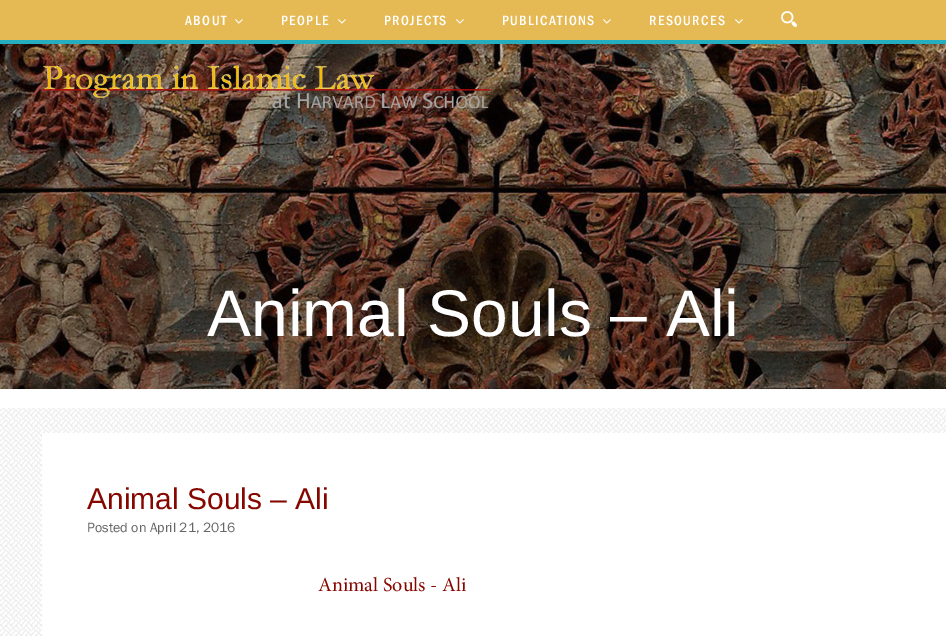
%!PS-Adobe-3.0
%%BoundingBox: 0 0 946 636
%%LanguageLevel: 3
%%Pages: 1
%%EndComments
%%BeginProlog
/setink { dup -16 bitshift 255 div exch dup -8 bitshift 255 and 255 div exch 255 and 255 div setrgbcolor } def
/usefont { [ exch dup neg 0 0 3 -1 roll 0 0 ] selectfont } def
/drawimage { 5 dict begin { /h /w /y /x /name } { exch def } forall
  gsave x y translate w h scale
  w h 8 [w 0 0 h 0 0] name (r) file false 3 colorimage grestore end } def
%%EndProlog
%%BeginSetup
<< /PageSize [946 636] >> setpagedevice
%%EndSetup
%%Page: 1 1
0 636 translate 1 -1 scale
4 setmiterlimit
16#FAFAFA setink
0 0 946 636 rectfill
16#E5BA54 setink
0 0 946 40 rectfill
16#25ADC0 setink
0 40 946 4 rectfill
/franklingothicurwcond-Regular 14 usefont
16#FFFFFF setink
185 25 moveto 1.4 0 (ABOUT) ashow
(img1.raw) 235 19 8 5 drawimage
281 25 moveto 1.4 0 (PEOPLE) ashow
(img1.raw) 338 19 8 5 drawimage
384 25 moveto 1.4 0 (PROJECTS) ashow
(img1.raw) 456 19 8 5 drawimage
502 25 moveto 1.4 0 (PUBLICATIONS) ashow
(img1.raw) 603 19 8 5 drawimage
649 25 moveto 1.4 0 (RESOURCES) ashow
(img1.raw) 735 19 8 5 drawimage
(img2.raw) 781 11 16 16 drawimage
(img3.raw) 0 44 946 345 drawimage
(img4.raw) 42 65 450 44 drawimage
/LiberationSans-Regular 66 usefont
207 336 moveto (Animal Souls – Ali) show
(img5.raw) 0 408 946 228 drawimage
0 390 946 18 rectfill
42 433 904 203 rectfill
/LiberationSans-Regular 30 usefont
16#860700 setink
87 509 moveto (Animal Souls – Ali) show
/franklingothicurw-Regular 14 usefont
16#666666 setink
87 532 moveto (Posted on April 21, 2016) show
/minion-Regular 20 usefont
16#860700 setink
318 591 moveto (Animal Souls - Ali) show
showpage
%%EOF
